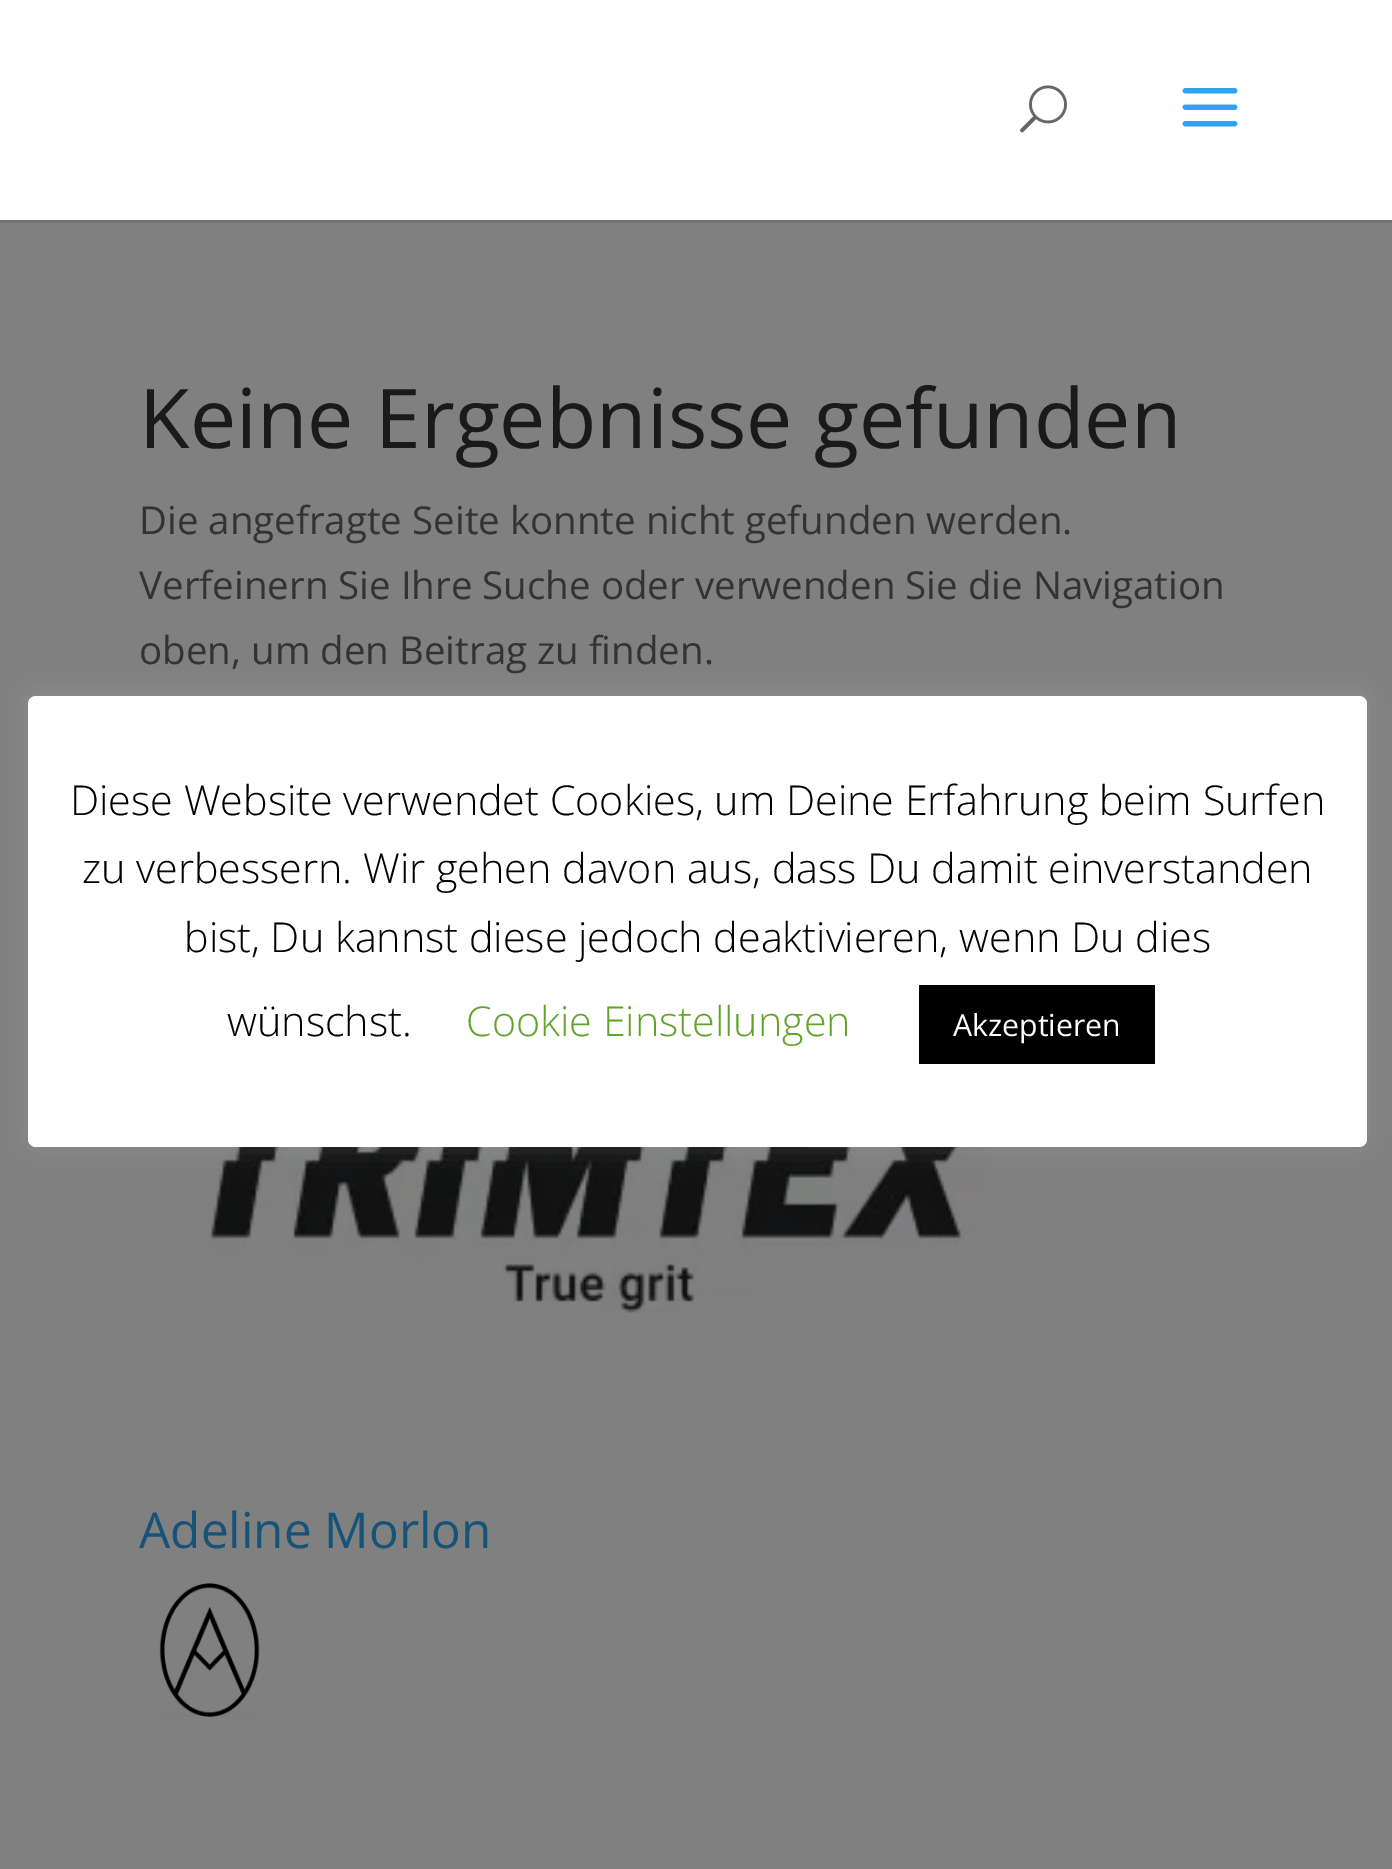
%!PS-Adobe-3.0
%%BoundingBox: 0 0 1392 1869
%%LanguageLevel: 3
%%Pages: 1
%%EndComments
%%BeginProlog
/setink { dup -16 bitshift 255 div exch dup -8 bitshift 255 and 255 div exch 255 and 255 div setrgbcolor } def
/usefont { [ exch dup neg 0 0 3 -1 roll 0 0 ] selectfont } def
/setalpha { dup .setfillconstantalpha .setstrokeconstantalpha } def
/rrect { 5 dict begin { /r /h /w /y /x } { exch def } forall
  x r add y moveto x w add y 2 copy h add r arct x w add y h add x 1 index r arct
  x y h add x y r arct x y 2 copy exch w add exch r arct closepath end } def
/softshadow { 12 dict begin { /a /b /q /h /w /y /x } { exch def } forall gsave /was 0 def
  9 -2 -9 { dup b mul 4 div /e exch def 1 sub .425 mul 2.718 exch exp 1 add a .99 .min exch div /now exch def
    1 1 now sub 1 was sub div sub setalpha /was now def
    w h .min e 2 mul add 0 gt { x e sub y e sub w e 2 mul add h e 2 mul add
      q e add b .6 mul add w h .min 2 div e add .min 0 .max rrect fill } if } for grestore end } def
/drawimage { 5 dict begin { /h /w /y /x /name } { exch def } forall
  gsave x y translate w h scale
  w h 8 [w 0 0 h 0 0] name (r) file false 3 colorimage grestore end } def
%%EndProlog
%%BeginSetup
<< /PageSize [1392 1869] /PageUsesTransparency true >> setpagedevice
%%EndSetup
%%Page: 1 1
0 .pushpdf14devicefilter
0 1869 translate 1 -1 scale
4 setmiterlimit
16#808080 setink
0 0 1392 1869 rectfill
16#737373 setink
0 220 1392 3 rectfill
16#FFFFFF setink
0 0 1392 220 rectfill
(img1.raw) 1020 85 47 48 drawimage
(img2.raw) 1182 88 56 39 drawimage
/OpenSans-Regular 82.5 usefont
16#1A1A1A setink
139 448 moveto (Keine Ergebnisse gefunden) show
/OpenSans-Regular 38.5 usefont
16#333333 setink
[
    [(Die angefragte Seite konnte nicht gefunden werden.) 139 534]
    [(Verfeinern Sie Ihre Suche oder verwenden Sie die Navigation) 139 599]
    [(oben, um den Beitrag zu finden.) 139 664]
] { aload pop moveto show } forall
(img3.raw) 207 1147 792 166 drawimage
/OpenSans-Regular 49.5 usefont
16#175279 setink
139 1548 moveto (Adeline Morlon) show
(img4.raw) 159 1583 101 134 drawimage
16#ACABAB setink
28 693 1339 451 8 14 0.3 softshadow
16#FFFFFF setink
28 696 1339 451 8 rrect fill
/OpenSans-Light 41.25 usefont
16#000000 setink
[
    [(Diese Website verwendet Cookies, um Deine Erfahrung beim Surfen) 70 815]
    [(zu verbessern. Wir gehen davon aus, dass Du damit einverstanden) 82 883]
    [(bist, Du kannst diese jedoch deaktivieren, wenn Du dies) 184 952]
    [(wünschst.) 227 1036]
] { aload pop moveto show } forall
16#62A329 setink
466 1036 moveto (Cookie Einstellungen) show
16#000000 setink
919 985 236 79 rectfill
/OpenSans-Regular 30.25 usefont
16#FFFFFF setink
953 1036 moveto (Akzeptieren) show
.poppdf14devicefilter showpage
%%EOF
